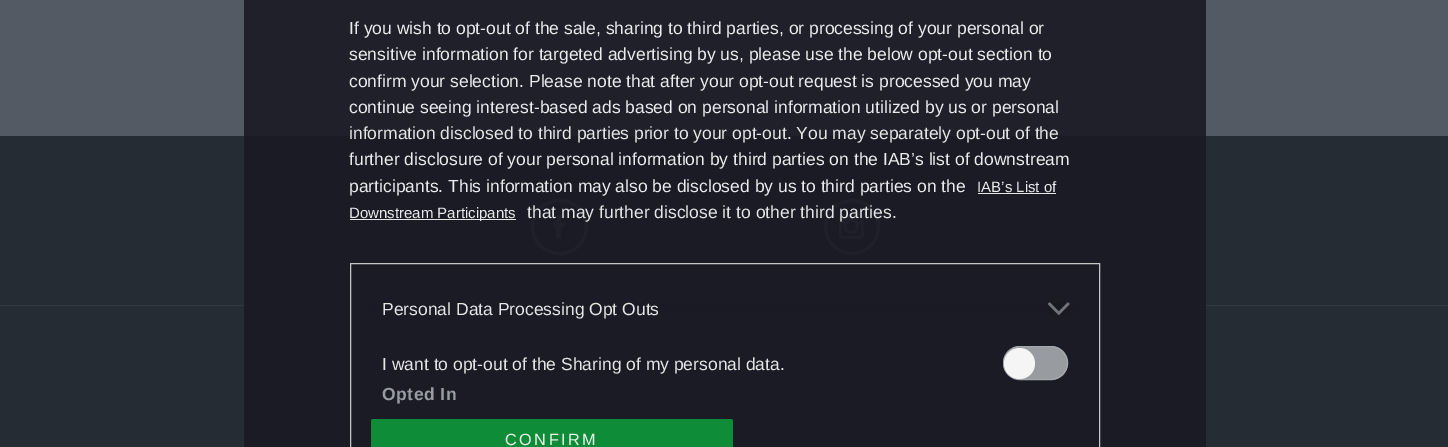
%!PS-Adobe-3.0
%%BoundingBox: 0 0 1448 447
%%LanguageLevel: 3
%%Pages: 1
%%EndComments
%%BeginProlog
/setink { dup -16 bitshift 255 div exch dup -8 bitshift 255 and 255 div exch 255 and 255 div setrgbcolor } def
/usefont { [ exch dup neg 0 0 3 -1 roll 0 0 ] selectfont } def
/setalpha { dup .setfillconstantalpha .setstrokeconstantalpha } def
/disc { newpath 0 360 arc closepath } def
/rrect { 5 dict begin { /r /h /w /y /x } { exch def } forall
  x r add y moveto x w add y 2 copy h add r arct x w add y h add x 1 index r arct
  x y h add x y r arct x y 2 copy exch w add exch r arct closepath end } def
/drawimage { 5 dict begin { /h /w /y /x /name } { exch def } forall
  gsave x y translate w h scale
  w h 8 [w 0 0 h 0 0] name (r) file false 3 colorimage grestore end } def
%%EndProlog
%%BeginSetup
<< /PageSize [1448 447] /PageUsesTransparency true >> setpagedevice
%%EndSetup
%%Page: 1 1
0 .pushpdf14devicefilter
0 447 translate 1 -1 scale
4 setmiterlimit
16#545A63 setink
0 0 1448 447 rectfill
16#1F2029 setink
244 0 962 136 rectfill
/LiberationSans-Regular 17.5 usefont
16#EAEBEC setink
[
    [(If you wish to opt-out of the sale, sharing to third parties, or processing of your personal or) 349 34]
    [(sensitive information for targeted advertising by us, please use the below opt-out section to) 349 60]
    [(confirm your selection. Please note that after your opt-out request is processed you may) 349 87]
    [(continue seeing interest-based ads based on personal information utilized by us or personal) 349 113]
] { aload pop moveto show } forall
16#262C34 setink
0 136 1448 311 rectfill
16#1A1B24 setink
244 136 962 311 rectfill
16#E5E5E6 setink
349 139 moveto (information disclosed to third parties prior to your opt-out. You may separately opt-out of the) show
16#EAEBEC setink
349 165 moveto (further disclosure of your personal information by third parties on the IAB’s list of downstream) show
349 192 moveto (participants. This information may also be disclosed by us to third parties on the) show
/LiberationSans-Regular 15 usefont
977 192 moveto (IAB’s List of) show
16#E6E6E7 setink
978 193 78 1 rectfill
350 219 166 1 rectfill
16#EAEBEC setink
349 218 moveto (Downstream Participants) show
16#1F2029 setink
3 setlinewidth
532.5 200.5 54 53 26.5 rrect stroke
(img2.raw) 553 214 12 25 drawimage
852 227 26.5 disc stroke
(img3.raw) 839 214 25 25 drawimage
/LiberationSans-Regular 17.5 usefont
16#E5E5E6 setink
527 218 moveto (that may further disclose it to other third parties.) show
[
    [0 305 1448 1 16#323841]
    [244 305 962 1 16#1C1C25]
    [364 305 722 1 16#191922]
] { aload pop setink rectfill } forall
16#C5C5C6 setink
1 setlinewidth
350.5 263.5 749 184 rectstroke
16#E5E5E6 setink
382 315 moveto (Personal Data Processing Opt Outs) show
(img1.raw) 1048 302 22 13 drawimage
382 370 moveto (I want to opt-out of the Sharing of my personal data.) show
16#989BA0 setink
1003 346 65 34 17 rrect fill
0.9 setalpha
16#A6A9AE setink
1003.5 346.5 64 33 16.5 rrect stroke
16#FFFFFF setink
1019.5 363.5 15.5 disc fill
/LiberationSans-Bold 17.5 usefont
1 setalpha
16#999CA2 setink
382 400 moveto 0.5 0 (Opted In) ashow
0.9 setalpha
16#0E9839 setink
373.5 419 moveto 730.5 419 lineto 732 419 733 420 733 421.5 curveto 733 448 lineto 371 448 lineto 371 421.5 lineto 371 420 372 419 373.5 419 curveto closepath fill
/LiberationSans-Regular 16.25 usefont
1 setalpha
16#E7F3EB setink
505 445 moveto 2.5 0 (CONFIRM) ashow
.poppdf14devicefilter showpage
%%EOF
